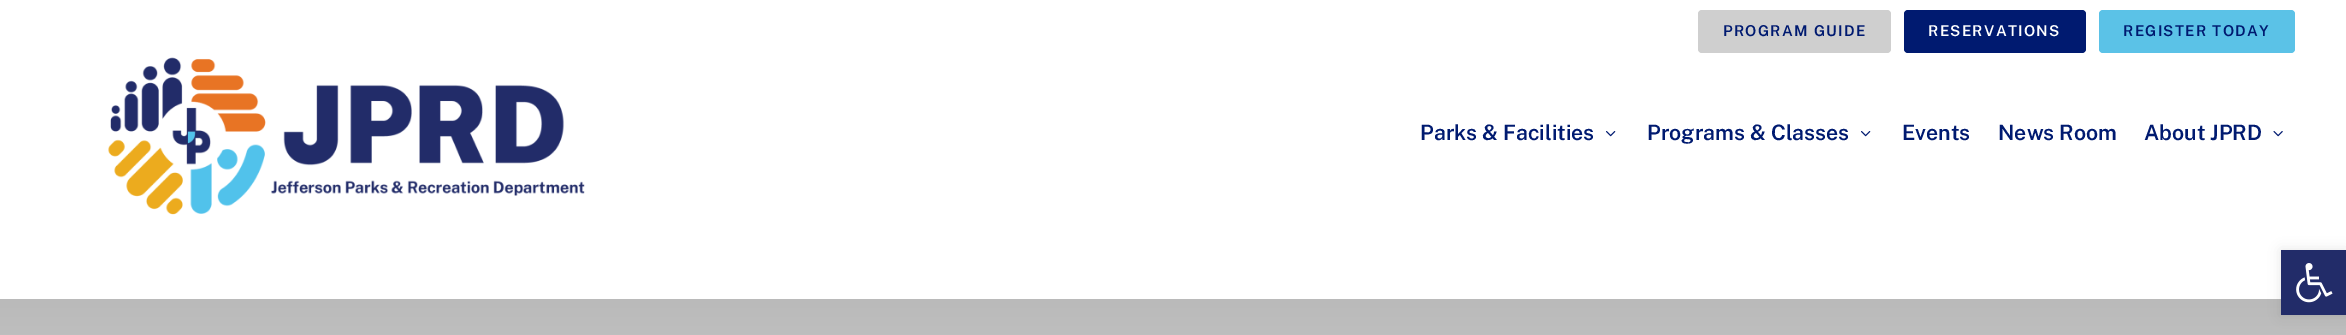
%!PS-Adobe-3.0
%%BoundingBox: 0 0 2346 335
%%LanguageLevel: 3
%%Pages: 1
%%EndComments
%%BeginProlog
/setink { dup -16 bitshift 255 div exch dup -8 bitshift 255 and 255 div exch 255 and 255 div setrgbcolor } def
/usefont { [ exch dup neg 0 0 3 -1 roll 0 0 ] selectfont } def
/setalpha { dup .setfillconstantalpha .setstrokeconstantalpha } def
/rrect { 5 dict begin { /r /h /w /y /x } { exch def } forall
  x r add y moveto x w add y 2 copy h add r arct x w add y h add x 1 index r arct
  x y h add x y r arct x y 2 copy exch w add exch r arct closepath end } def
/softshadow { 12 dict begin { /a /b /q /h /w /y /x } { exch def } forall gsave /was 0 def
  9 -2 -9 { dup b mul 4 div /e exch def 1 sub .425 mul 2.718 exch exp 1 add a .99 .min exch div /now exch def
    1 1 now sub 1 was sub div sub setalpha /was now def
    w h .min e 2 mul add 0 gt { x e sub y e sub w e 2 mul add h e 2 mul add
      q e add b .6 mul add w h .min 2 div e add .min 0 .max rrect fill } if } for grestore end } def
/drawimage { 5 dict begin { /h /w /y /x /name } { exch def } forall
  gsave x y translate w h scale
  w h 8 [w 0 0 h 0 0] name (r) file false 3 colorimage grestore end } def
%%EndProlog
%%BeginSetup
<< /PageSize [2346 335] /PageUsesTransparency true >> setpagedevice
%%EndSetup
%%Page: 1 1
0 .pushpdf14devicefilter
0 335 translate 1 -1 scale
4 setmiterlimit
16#FFFFFF setink
0 0 2346 335 rectfill
(img1.raw) 108 57 477 158 drawimage
16#CFCFCF setink
1698 10 193 43 4 rrect fill
/PublicSans-Thin 15 usefont
16#001A70 setink
1723 36 moveto 1.25 0 (PROGRAM GUIDE) ashow
1904 10 182 43 4 rrect fill
16#FFFFFF setink
1928 36 moveto 1.25 0 (RESERVATIONS) ashow
16#5BC2E7 setink
2099 10 196 43 4 rrect fill
16#001A70 setink
2123 36 moveto 1.25 0 (REGISTER TODAY) ashow
/PublicSans-Thin 21.25 usefont
1420 140 moveto (Parks & Facilities) show
(img2.raw) 1606 131 10 6 drawimage
1647 140 moveto (Programs & Classes) show
(img2.raw) 1861 131 10 6 drawimage
[
    [(Events) 1902 140]
    [(News Room) 1998 140]
    [(About JPRD) 2144 140]
] { aload pop moveto show } forall
(img3.raw) 2273 131 10 6 drawimage
gsave 0 299 moveto 2346 299 lineto 2346 335 lineto 0 335 lineto closepath clip newpath
<< /ShadingType 2 /ColorSpace /DeviceRGB /Coords [1173 299 1173 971] /Extend [true true] /Function << /FunctionType 2 /Domain [0 1] /C0 [0.729 0.729 0.729] /C1 [1 1 1] /N 1 >> >> shfill grestore
16#000000 setink
2281 250 65 65 0 6 0.1 softshadow
16#222C69 setink
2281 250 65 65 rectfill
(img4.raw) 2296 263 37 40 drawimage
.poppdf14devicefilter showpage
%%EOF
